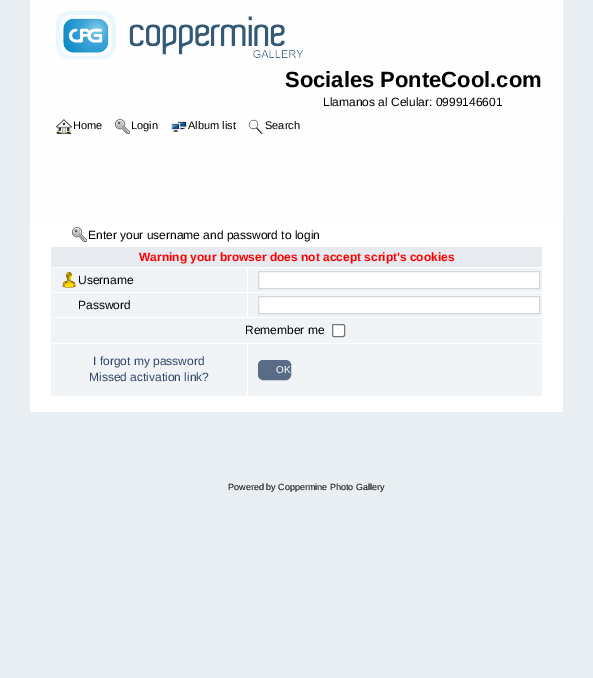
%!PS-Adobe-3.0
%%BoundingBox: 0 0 593 678
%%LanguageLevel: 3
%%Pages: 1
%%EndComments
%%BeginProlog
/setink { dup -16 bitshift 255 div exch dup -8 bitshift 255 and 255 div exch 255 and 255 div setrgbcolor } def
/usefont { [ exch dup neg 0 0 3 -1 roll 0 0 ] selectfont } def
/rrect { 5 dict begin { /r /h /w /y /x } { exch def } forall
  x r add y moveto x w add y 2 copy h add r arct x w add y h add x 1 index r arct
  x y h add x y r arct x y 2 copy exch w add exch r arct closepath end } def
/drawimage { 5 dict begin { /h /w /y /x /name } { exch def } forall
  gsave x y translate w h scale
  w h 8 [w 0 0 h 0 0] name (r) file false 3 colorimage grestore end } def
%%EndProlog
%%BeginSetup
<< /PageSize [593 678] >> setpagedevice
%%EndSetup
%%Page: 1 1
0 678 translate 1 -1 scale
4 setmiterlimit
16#E9EEF2 setink
0 0 593 678 rectfill
16#FEFEFE setink
30 0 533 221 rectfill
(img1.raw) 55 10 249 50 drawimage
/LiberationSans-Bold 22 usefont
16#000000 setink
285 87 moveto (Sociales PonteCool.com) show
/LiberationSans-Regular 12 usefont
323 106 moveto (Llamanos al Celular: 0999146601) show
(img2.raw) 56 119 16 16 drawimage
/LiberationSans-Regular 11 usefont
73 129 moveto (Home) show
(img3.raw) 115 119 15 15 drawimage
131 129 moveto (Login) show
(img4.raw) 171 121 16 11 drawimage
188 129 moveto (Album list) show
(img5.raw) 248 119 16 15 drawimage
265 129 moveto (Search) show
16#FFFFFF setink
30 221 533 191 rectfill
(img6.raw) 72 227 15 15 drawimage
/LiberationSans-Regular 12 usefont
16#000000 setink
88 239 moveto (Enter your username and password to login) show
16#E7EAEF setink
51 247 491 20 rectfill
/LiberationSans-Bold 12 usefont
16#FF0000 setink
139 261 moveto (Warning your browser does not accept script's cookies) show
16#F0F4F7 setink
51 268 196 24 rectfill
(img7.raw) 62 272 14 16 drawimage
/LiberationSans-Regular 12 usefont
16#000000 setink
78 284 moveto (Username) show
16#F0F4F7 setink
248 268 294 24 rectfill
16#FFFFFF setink
258.5 271.5 moveto 539.5 271.5 lineto 539.5 288.5 lineto 258.5 288.5 lineto closepath gsave fill grestore
16#D1D7DC setink
stroke
16#F0F4F7 setink
51 293 196 24 rectfill
16#000000 setink
78 309 moveto (Password) show
16#F0F4F7 setink
248 293 294 24 rectfill
16#FFFFFF setink
258.5 296.5 moveto 539.5 296.5 lineto 539.5 313.5 lineto 258.5 313.5 lineto closepath gsave fill grestore
16#D1D7DC setink
stroke
16#F0F4F7 setink
51 318 491 25 rectfill
16#000000 setink
245 334 moveto (Remember me) show
16#FFFFFF setink
332.5 324.5 12 12 1.5 rrect gsave fill grestore
16#767676 setink
stroke
16#F0F4F7 setink
51 344 196 52 rectfill
16#334466 setink
93 365 moveto (I forgot my password) show
89 381 moveto (Missed activation link?) show
16#F0F4F7 setink
248 344 294 52 rectfill
16#5A6C85 setink
258.5 360.5 32 19 4.5 rrect gsave fill grestore
stroke
/LiberationSans-Regular 10 usefont
16#FFFFFF setink
276 373 moveto (OK) show
/LiberationSans-Regular 9 usefont
16#000000 setink
228 490 moveto (Powered by Coppermine Photo Gallery) show
showpage
%%EOF
